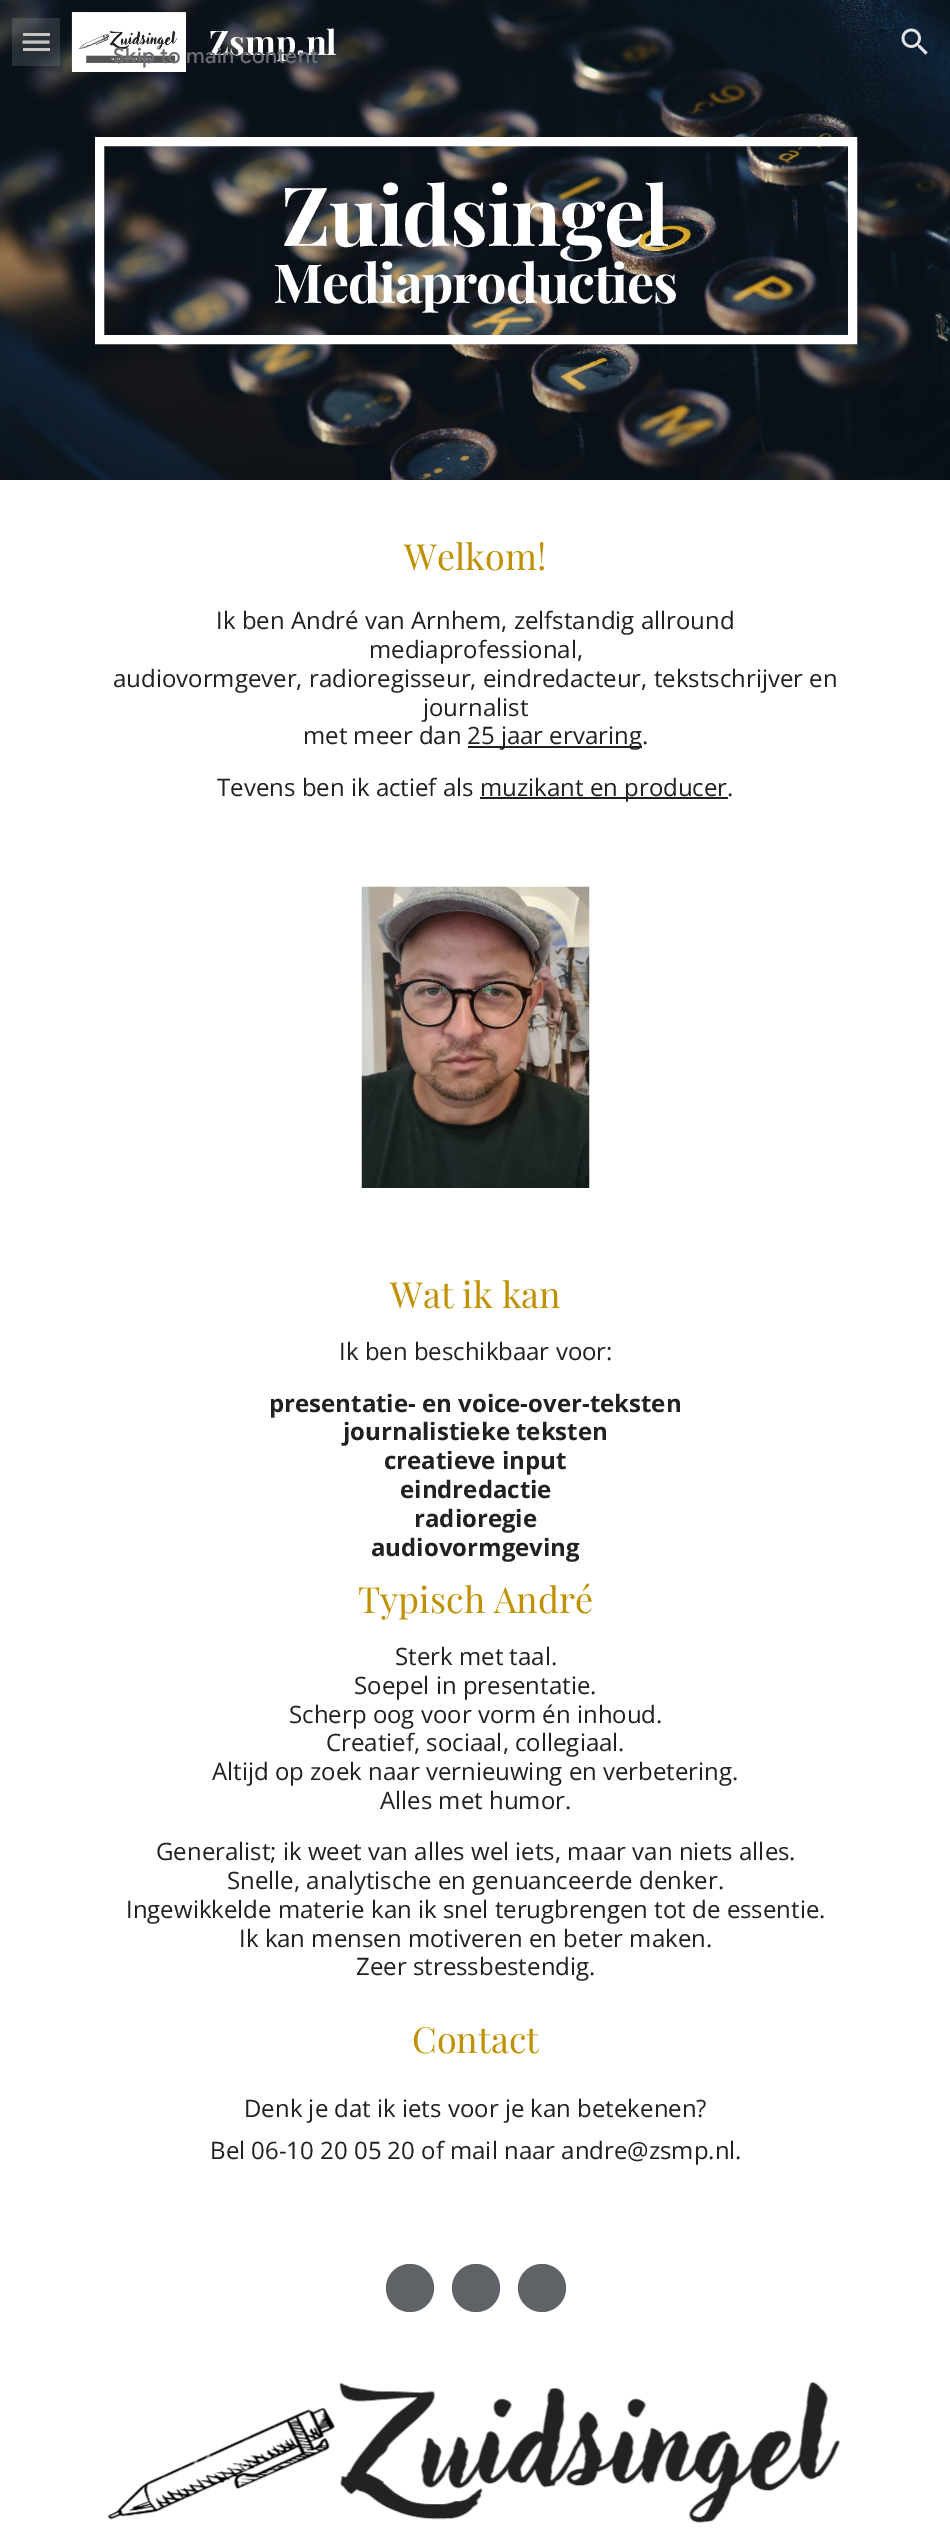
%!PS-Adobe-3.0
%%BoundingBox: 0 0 950 2542
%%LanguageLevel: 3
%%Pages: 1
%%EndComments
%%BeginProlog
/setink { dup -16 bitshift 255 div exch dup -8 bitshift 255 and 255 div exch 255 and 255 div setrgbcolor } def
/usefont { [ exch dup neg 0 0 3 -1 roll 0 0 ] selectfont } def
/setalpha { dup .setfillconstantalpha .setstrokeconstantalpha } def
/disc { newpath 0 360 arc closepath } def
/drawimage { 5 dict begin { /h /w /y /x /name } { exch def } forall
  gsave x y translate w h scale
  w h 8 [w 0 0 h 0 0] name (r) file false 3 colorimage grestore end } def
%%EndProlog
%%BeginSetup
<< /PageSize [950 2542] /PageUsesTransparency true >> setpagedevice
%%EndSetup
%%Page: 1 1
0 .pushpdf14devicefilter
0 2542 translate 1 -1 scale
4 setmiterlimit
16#FFFFFF setink
0 0 950 2542 rectfill
(img3.raw) 0 0 950 480 drawimage
16#C0BDB8 setink
23 33 27 3 rectfill
3 setlinewidth
22.5 42 moveto 49.5 42 lineto stroke
23 48 27 3 rectfill
0.12 setalpha
16#FFFFFF setink
12 18 48 48 rectfill
1 setalpha
(img1.raw) 71 12 116 60 drawimage
/PlayfairDisplay-Bold 34 usefont
209 55 moveto (Zsmp.nl) show
(img2.raw) 901 28 27 27 drawimage
9 setlinewidth
99.5 141.5 753 198 rectstroke
/PlayfairDisplay-Bold 82 usefont
281 246 moveto -1.25 0 (Zuidsingel) ashow
/PlayfairDisplay-Bold 54 usefont
273 303 moveto -1.25 0 (Mediaproducties) ashow
/PlayfairDisplay-Regular 36 usefont
16#BF9000 setink
404 570 moveto (Welkom!) show
/OpenSans-Regular 24 usefont
16#212121 setink
[
    [(Ik ben André van Arnhem, zelfstandig allround) 216 629]
    [(mediaprofessional,) 369 658]
    [(audiovormgever, radioregisseur, eindredacteur, tekstschrijver en) 113 687]
    [(journalist) 423 716]
    [(met meer dan) 303 744]
] { aload pop moveto show } forall
468 746 174 2 rectfill
467 744 moveto (25 jaar ervaring.) show
217 796 moveto (Tevens ben ik actief als) show
480 797 248 2 rectfill
480 796 moveto (muzikant en producer.) show
(img4.raw) 361 886 229 302 drawimage
/PlayfairDisplay-Regular 36 usefont
16#BF9000 setink
390 1308 moveto (Wat ik kan) show
/OpenSans-Regular 24 usefont
16#212121 setink
339 1360 moveto (Ik ben beschikbaar voor:) show
/OpenSans-Bold 24 usefont
[
    [(presentatie- en voice-over-teksten) 269 1412]
    [(journalistieke teksten) 343 1440]
    [(creatieve input) 384 1469]
    [(eindredactie) 400 1498]
    [(radioregie) 414 1527]
    [(audiovormgeving) 371 1556]
] { aload pop moveto show } forall
/PlayfairDisplay-Regular 36 usefont
16#BF9000 setink
358 1613 moveto (Typisch André) show
/OpenSans-Regular 24 usefont
16#212121 setink
[
    [(Sterk met taal.) 395 1665]
    [(Soepel in presentatie.) 354 1694]
    [(Scherp oog voor vorm én inhoud.) 289 1723]
    [(Creatief, sociaal, collegiaal.) 326 1751]
    [(Altijd op zoek naar vernieuwing en verbetering.) 212 1780]
    [(Alles met humor.) 380 1809]
    [(Generalist; ik weet van alles wel iets, maar van niets alles.) 156 1860]
    [(Snelle, analytische en genuanceerde denker.) 227 1889]
    [(Ingewikkelde materie kan ik snel terugbrengen tot de essentie.) 126 1918]
    [(Ik kan mensen motiveren en beter maken.) 239 1947]
    [(Zeer stressbestendig.) 356 1975]
] { aload pop moveto show } forall
/PlayfairDisplay-Regular 36 usefont
16#BF9000 setink
412 2053 moveto (Contact) show
/OpenSans-Regular 24 usefont
16#212121 setink
244 2117 moveto (Denk je dat ik iets voor je kan betekenen?) show
210 2159 moveto (Bel 06-10 20 05 20 of mail naar andre@zsmp.nl.) show
16#5F6368 setink
410 2288 24 disc fill
476 2288 24 disc fill
542 2288 24 disc fill
(img5.raw) 107 2382 733 141 drawimage
/GoogleSans-Medium 21 usefont
16#6A6D71 setink
113 63 moveto 0.25 0 (Skip to main content) ashow
.poppdf14devicefilter showpage
%%EOF
